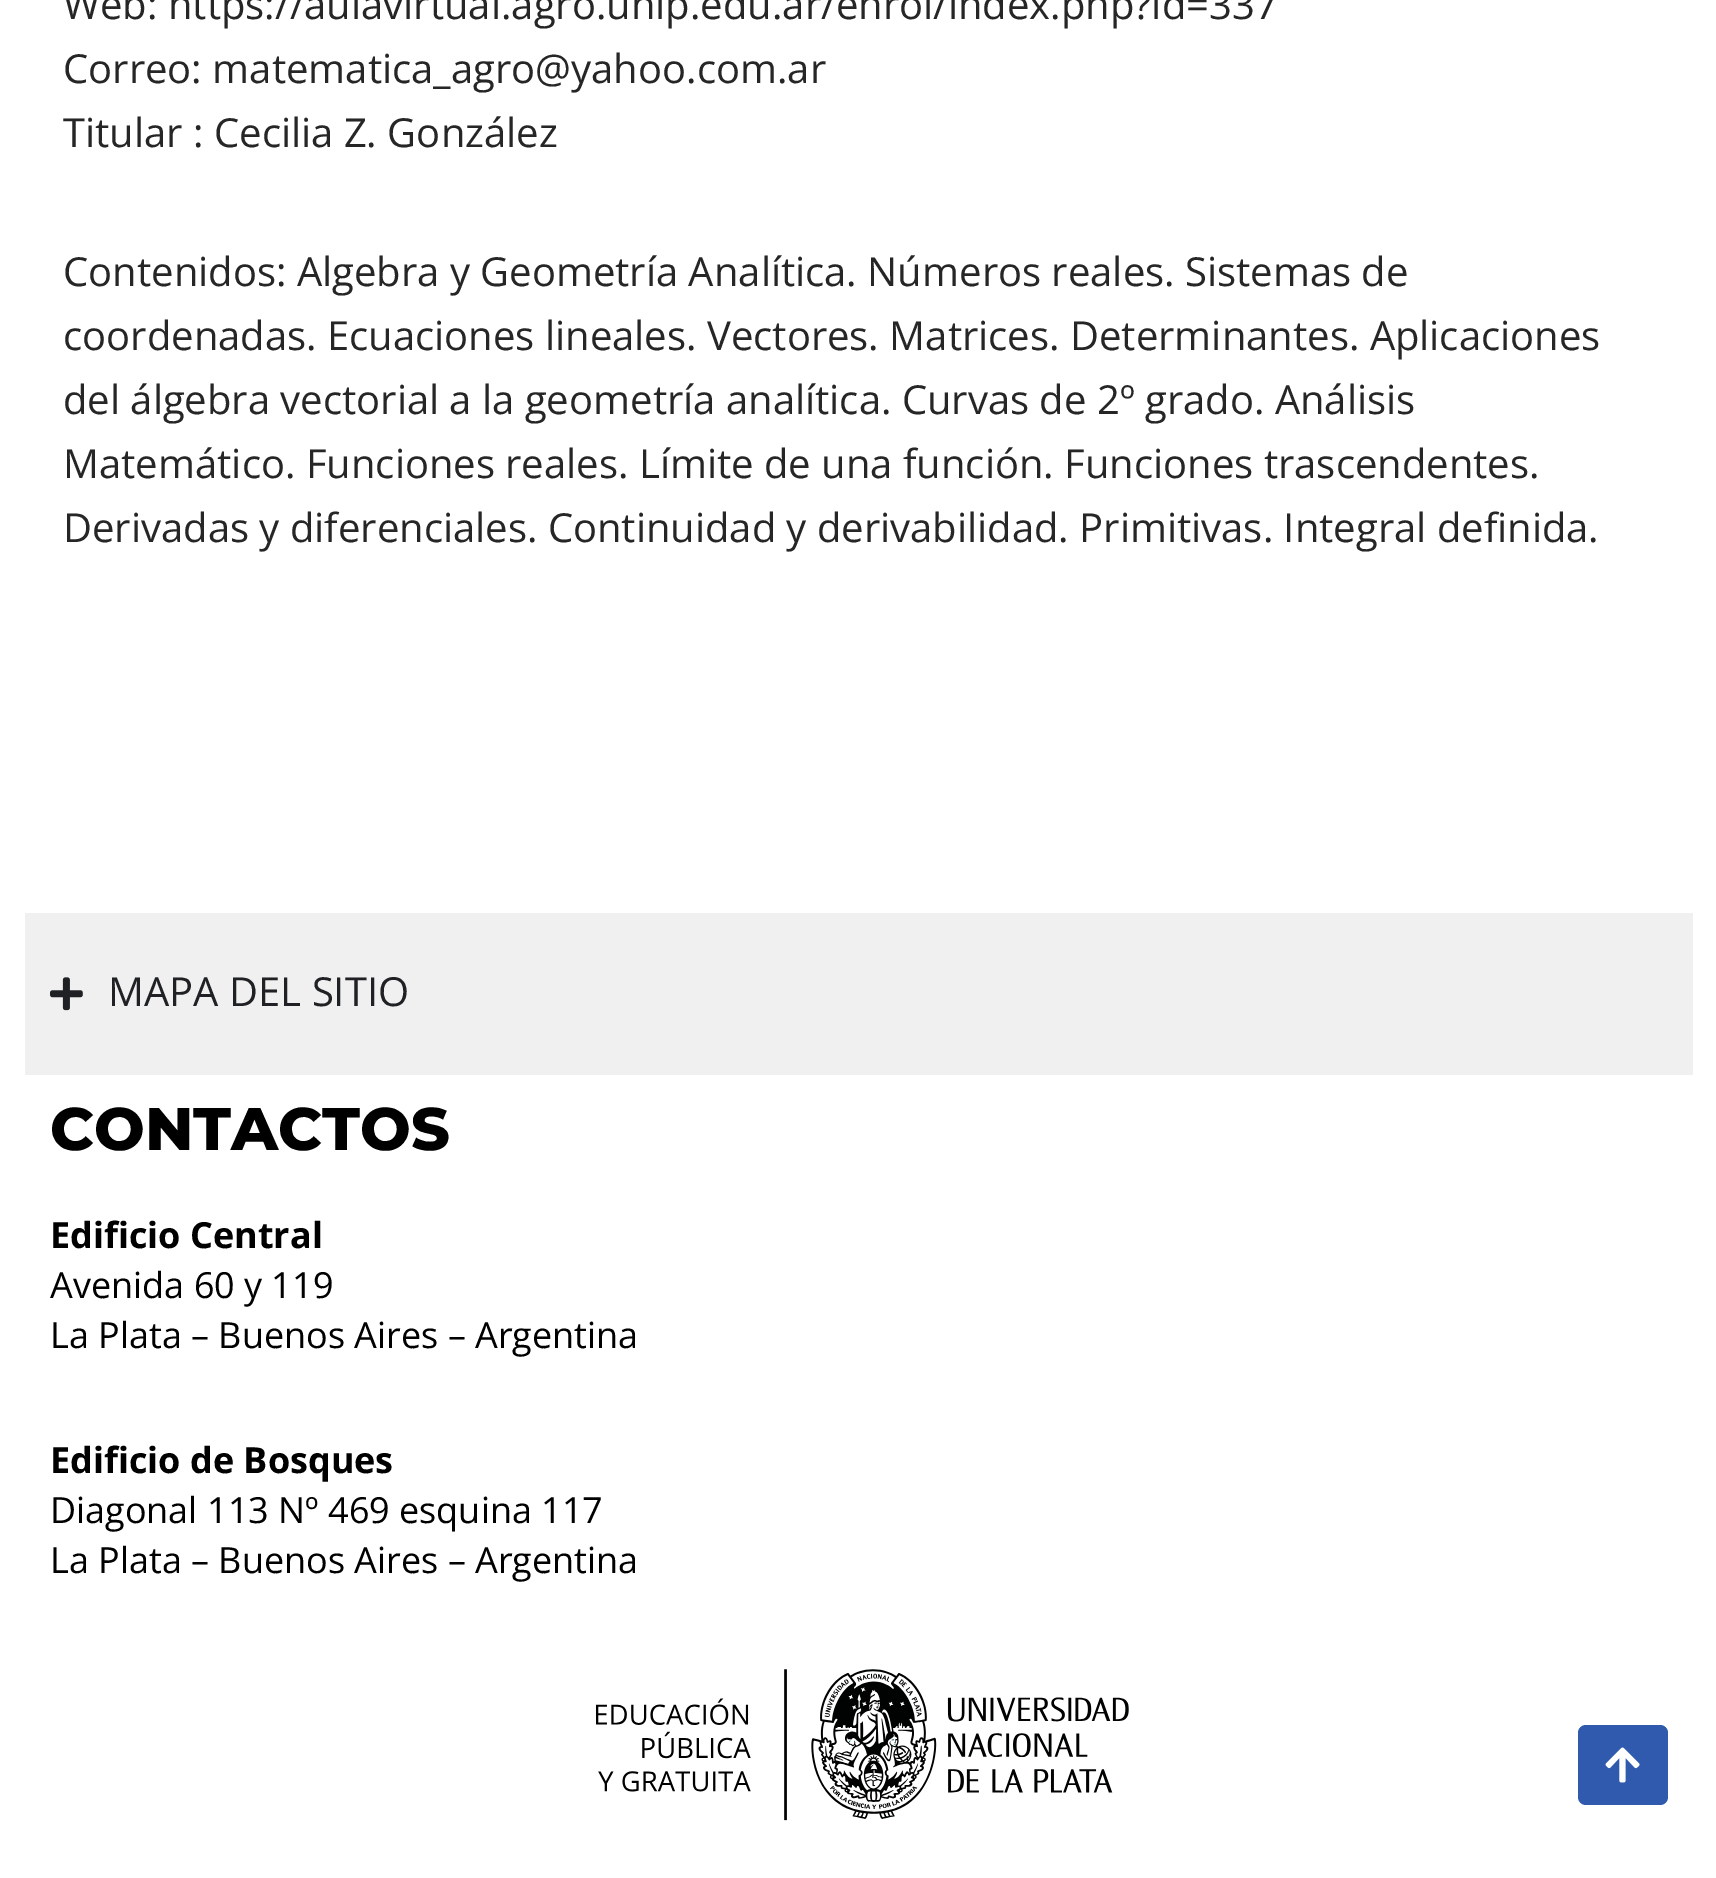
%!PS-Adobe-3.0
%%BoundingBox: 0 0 1716 1878
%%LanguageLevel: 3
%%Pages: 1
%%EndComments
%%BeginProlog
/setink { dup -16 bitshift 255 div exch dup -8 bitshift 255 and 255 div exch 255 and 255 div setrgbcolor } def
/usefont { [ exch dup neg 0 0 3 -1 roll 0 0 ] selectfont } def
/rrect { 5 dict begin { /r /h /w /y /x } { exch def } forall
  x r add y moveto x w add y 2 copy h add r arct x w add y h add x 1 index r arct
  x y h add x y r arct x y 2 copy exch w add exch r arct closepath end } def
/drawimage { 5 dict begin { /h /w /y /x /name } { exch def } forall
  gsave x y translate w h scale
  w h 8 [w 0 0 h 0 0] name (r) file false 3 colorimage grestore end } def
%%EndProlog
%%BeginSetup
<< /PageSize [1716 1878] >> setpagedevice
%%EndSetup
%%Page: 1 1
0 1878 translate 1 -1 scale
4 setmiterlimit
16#FFFFFF setink
0 0 1716 1878 rectfill
/OpenSans-Regular 40 usefont
16#272626 setink
[
    [(Web: https://aulavirtual.agro.unlp.edu.ar/enrol/index.php?id=337) 63 19]
    [(Correo: matematica_agro@yahoo.com.ar) 63 83]
    [(Titular : Cecilia Z. González) 63 147]
    [(Contenidos: Algebra y Geometría Analítica. Números reales. Sistemas de) 63 286]
    [(coordenadas. Ecuaciones lineales. Vectores. Matrices. Determinantes. Aplicaciones) 63 350]
    [(del álgebra vectorial a la geometría analítica. Curvas de 2º grado. Análisis) 63 414]
    [(Matemático. Funciones reales. Límite de una función. Funciones trascendentes.) 63 478]
    [(Derivadas y diferenciales. Continuidad y derivabilidad. Primitivas. Integral definida.) 63 542]
] { aload pop moveto show } forall
16#F0F0F0 setink
25 913 1668 162 rectfill
(img1.raw) 50 977 33 34 drawimage
16#1F2124 setink
108 1006 moveto (MAPA DEL SITIO) show
/Montserrat-ExtraBold 60 usefont
16#000000 setink
50 1150 moveto (CONTACTOS) show
/OpenSans-Bold 36 usefont
50 1248 moveto (Edificio Central) show
/OpenSans-Regular 36 usefont
50 1298 moveto (Avenida 60 y 119) show
50 1348 moveto (La Plata – Buenos Aires – Argentina) show
/OpenSans-Bold 36 usefont
50 1473 moveto (Edificio de Bosques) show
/OpenSans-Regular 36 usefont
50 1523 moveto (Diagonal 113 Nº 469 esquina 117) show
50 1573 moveto (La Plata – Buenos Aires – Argentina) show
(img2.raw) 596 1669 533 152 drawimage
16#2F5AAE setink
1578 1725 90 80 8 rrect fill
(img3.raw) 1605 1747 35 36 drawimage
showpage
%%EOF
